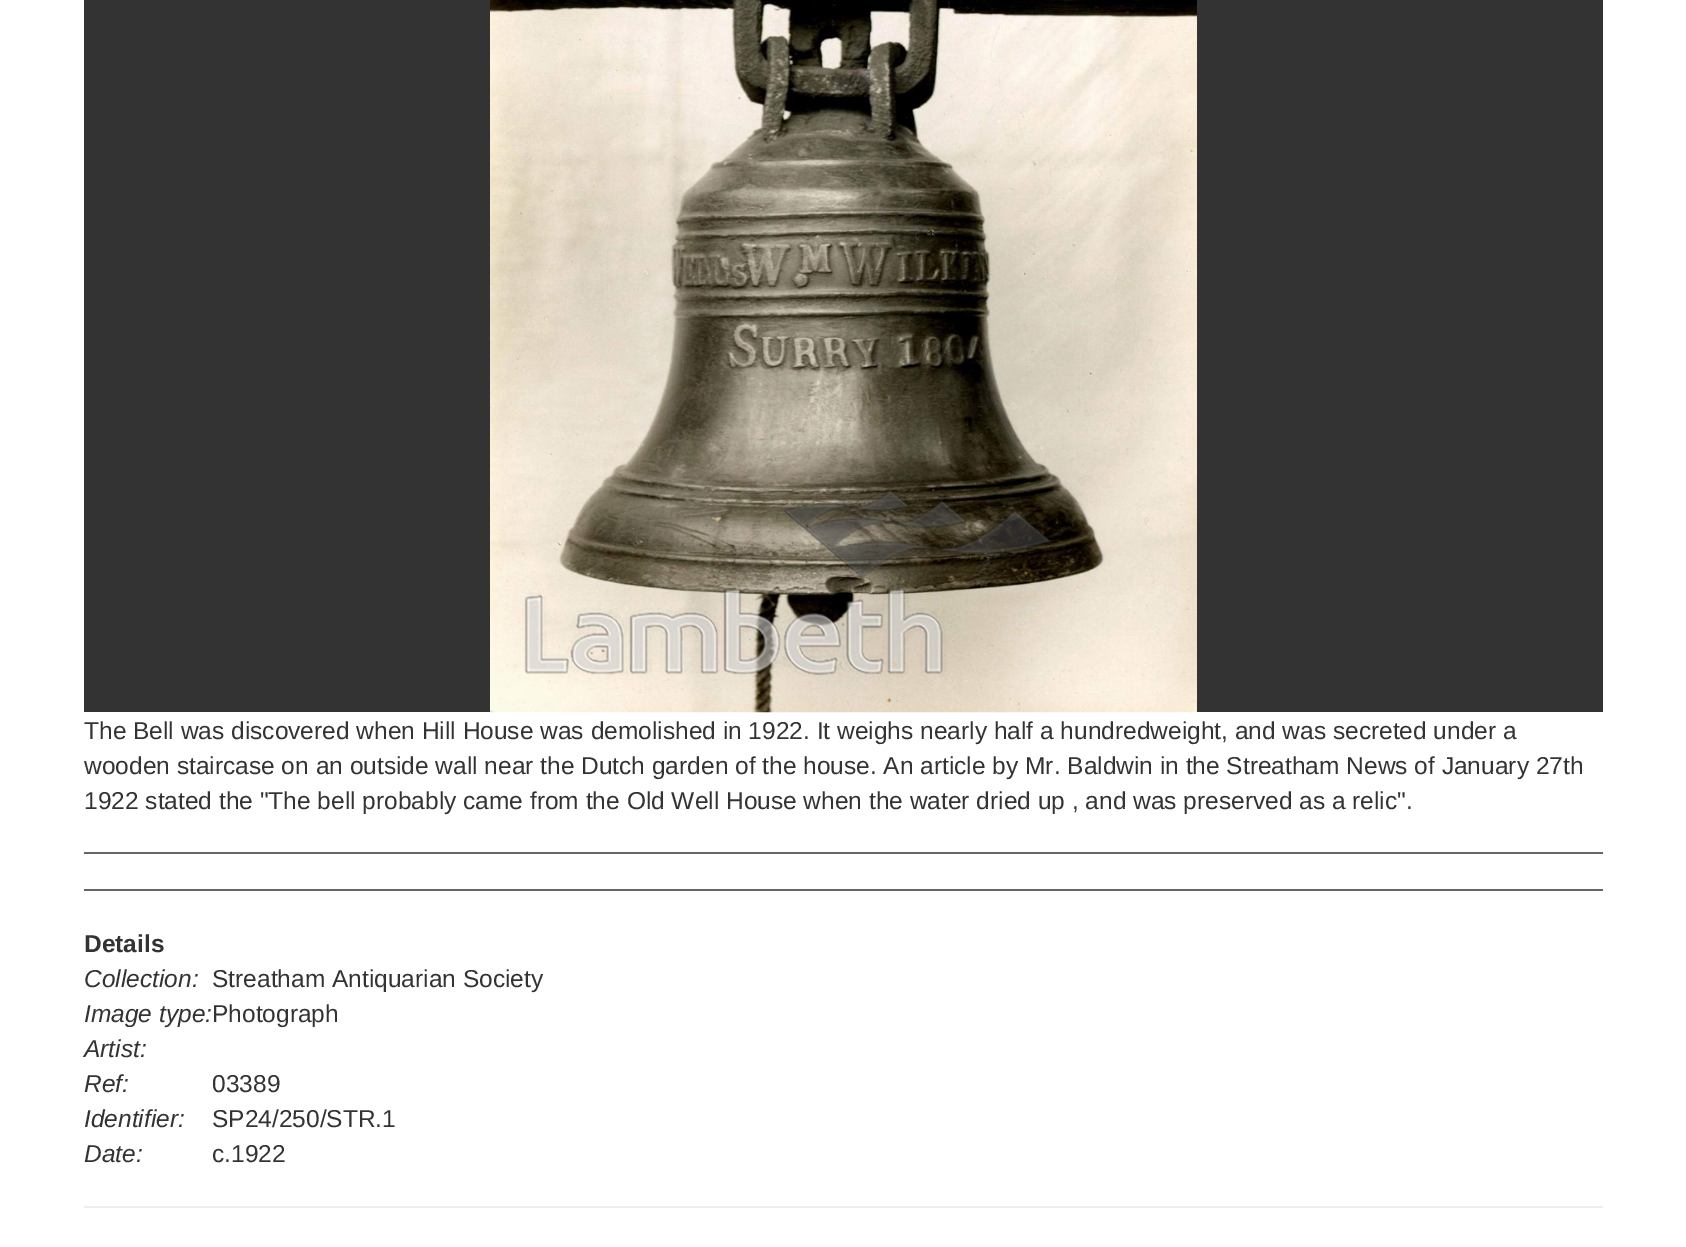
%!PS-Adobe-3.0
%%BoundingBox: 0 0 1686 1247
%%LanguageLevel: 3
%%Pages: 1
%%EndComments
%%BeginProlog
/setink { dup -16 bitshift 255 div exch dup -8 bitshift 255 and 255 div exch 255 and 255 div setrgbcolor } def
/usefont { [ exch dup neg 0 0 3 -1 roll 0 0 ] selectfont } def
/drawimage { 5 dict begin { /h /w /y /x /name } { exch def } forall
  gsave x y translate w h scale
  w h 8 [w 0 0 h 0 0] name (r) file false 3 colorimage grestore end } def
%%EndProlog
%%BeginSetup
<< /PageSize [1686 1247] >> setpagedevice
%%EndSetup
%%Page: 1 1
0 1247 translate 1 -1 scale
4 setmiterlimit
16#FFFFFF setink
0 0 1686 1247 rectfill
16#333333 setink
84 0 1519 712 rectfill
(img1.raw) 490 0 707 713 drawimage
/LiberationSans-Regular 24.5 usefont
[
    [(The Bell was discovered when Hill House was demolished in 1922. It weighs nearly half a hundredweight, and was secreted under a) 84 739]
    [(wooden staircase on an outside wall near the Dutch garden of the house. An article by Mr. Baldwin in the Streatham News of January 27th) 84 774]
    [(1922 stated the "The bell probably came from the Old Well House when the water dried up , and was preserved as a relic".) 84 809]
] { aload pop moveto show } forall
16#666666 setink
84 852 1519 2 rectfill
84 889 1519 2 rectfill
/LiberationSans-Bold 24.5 usefont
16#333333 setink
84 952 moveto (Details) show
/LiberationSans-Italic 24.5 usefont
84 987 moveto (Collection:) show
/LiberationSans-Regular 24.5 usefont
212 987 moveto (Streatham Antiquarian Society) show
/LiberationSans-Italic 24.5 usefont
84 1022 moveto (Image type:) show
/LiberationSans-Regular 24.5 usefont
212 1022 moveto (Photograph) show
/LiberationSans-Italic 24.5 usefont
84 1057 moveto (Artist:) show
84 1092 moveto (Ref:) show
/LiberationSans-Regular 24.5 usefont
212 1092 moveto (03389) show
/LiberationSans-Italic 24.5 usefont
84 1127 moveto (Identifier:) show
/LiberationSans-Regular 24.5 usefont
212 1127 moveto (SP24/250/STR.1) show
/LiberationSans-Italic 24.5 usefont
84 1162 moveto (Date:) show
/LiberationSans-Regular 24.5 usefont
212 1162 moveto (c.1922) show
16#EEEEEE setink
84 1206 1519 2 rectfill
showpage
%%EOF
